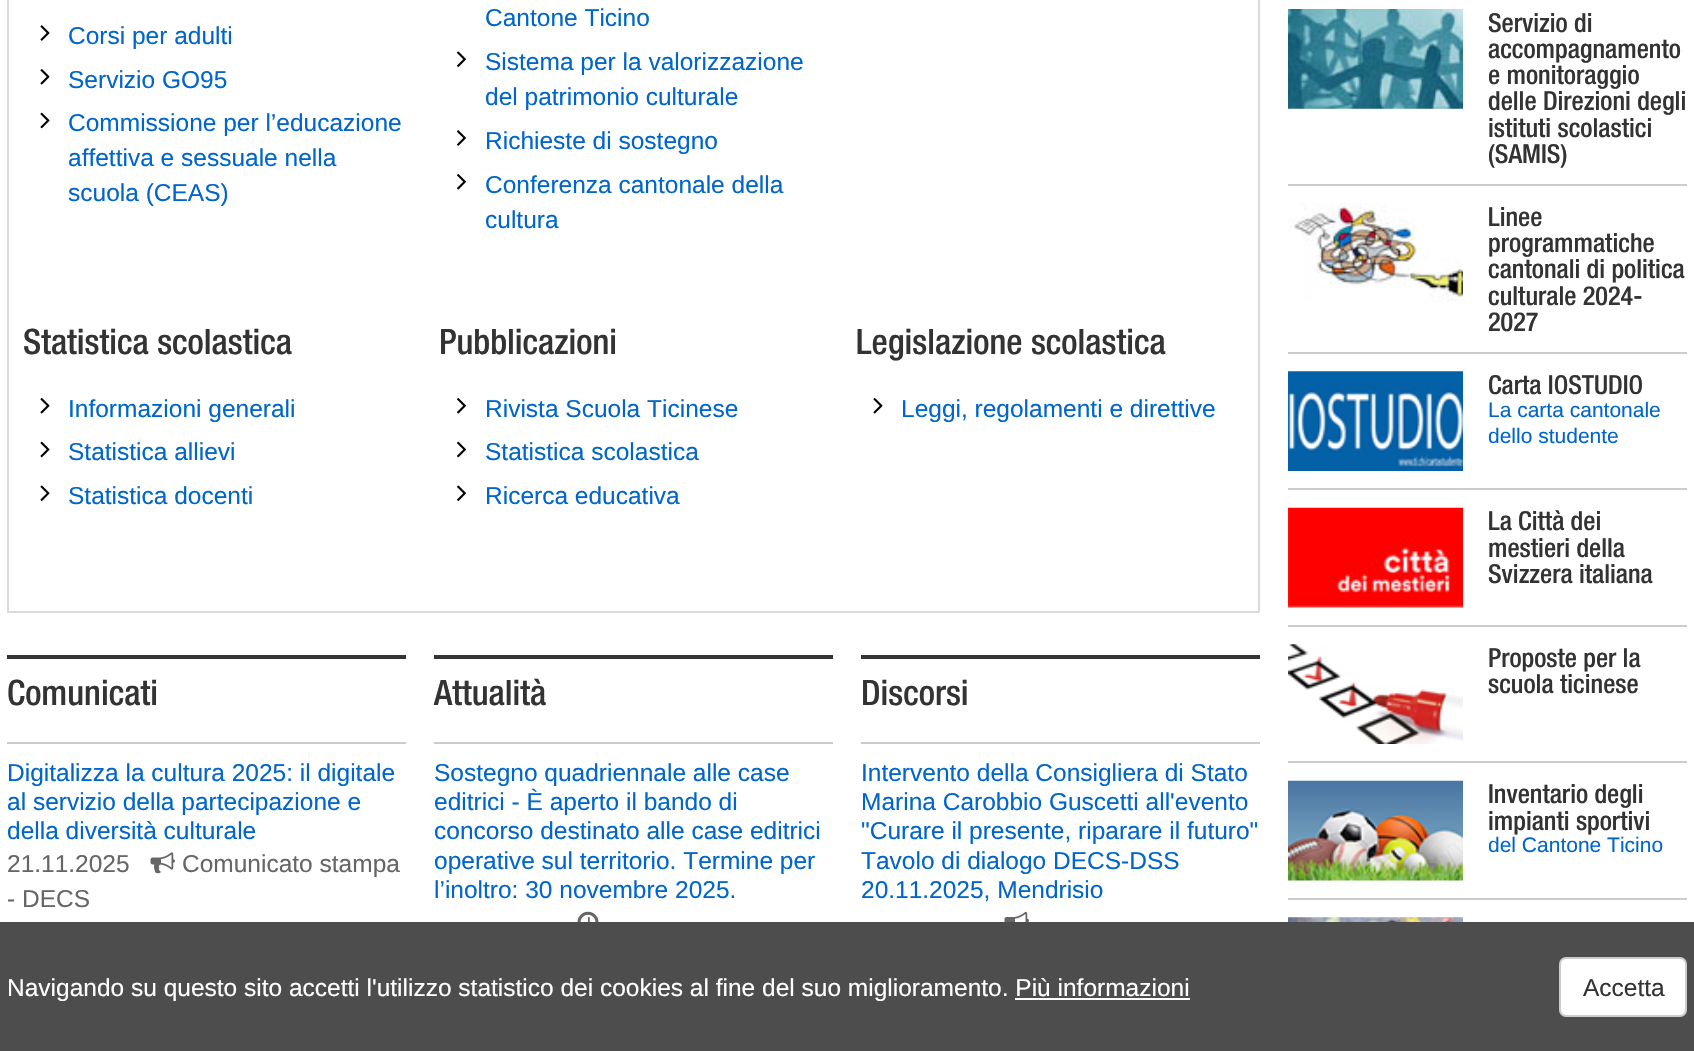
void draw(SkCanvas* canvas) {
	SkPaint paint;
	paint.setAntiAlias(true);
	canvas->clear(0xffffffff);
	paint.setStroke(true);
	paint.setStrokeWidth(2);
	paint.setColor(0xffdbdbdb);
	canvas->drawRect(SkRect::MakeXYWH(8, -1, 1251, 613), paint);
	canvas->drawImageRect(SkImages::DeferredFromEncodedData(SkData::MakeFromFileName("img1.png")), SkRect::MakeXYWH(40, 25, 10, 16), SkSamplingOptions());
	SkFont f1(fontMgr->matchFamilyStyle("Liberation Sans", SkFontStyle::Normal()), 24.5);
	f1.setSubpixel(true);
	paint.setStroke(false);
	paint.setColor(0xff0066cc);
	canvas->drawString("Corsi per adulti", 68, 44, f1, paint);
	canvas->drawImageRect(SkImages::DeferredFromEncodedData(SkData::MakeFromFileName("img2.png")), SkRect::MakeXYWH(40, 69, 10, 16), SkSamplingOptions());
	canvas->drawString("Servizio GO95", 68, 88, f1, paint);
	canvas->drawImageRect(SkImages::DeferredFromEncodedData(SkData::MakeFromFileName("img3.png")), SkRect::MakeXYWH(40, 112, 10, 17), SkSamplingOptions());
	canvas->drawString("Commissione per l’educazione", 68, 131, f1, paint);
	canvas->drawString("affettiva e sessuale nella", 68, 166, f1, paint);
	canvas->drawString("scuola (CEAS)", 68, 201, f1, paint);
	canvas->drawString("Cantone Ticino", 485, 26, f1, paint);
	canvas->drawImageRect(SkImages::DeferredFromEncodedData(SkData::MakeFromFileName("img4.png")), SkRect::MakeXYWH(457, 51, 9, 16), SkSamplingOptions());
	canvas->drawString("Sistema per la valorizzazione", 485, 70, f1, paint);
	canvas->drawString("del patrimonio culturale", 485, 105, f1, paint);
	canvas->drawImageRect(SkImages::DeferredFromEncodedData(SkData::MakeFromFileName("img5.png")), SkRect::MakeXYWH(457, 130, 9, 16), SkSamplingOptions());
	canvas->drawString("Richieste di sostegno", 485, 149, f1, paint);
	canvas->drawImageRect(SkImages::DeferredFromEncodedData(SkData::MakeFromFileName("img6.png")), SkRect::MakeXYWH(457, 174, 9, 16), SkSamplingOptions());
	canvas->drawString("Conferenza cantonale della", 485, 193, f1, paint);
	canvas->drawString("cultura", 485, 228, f1, paint);
	SkFont f2(fontMgr->matchFamilyStyle("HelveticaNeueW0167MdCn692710", SkFontStyle::Normal()), 35);
	f2.setSubpixel(true);
	paint.setColor(0xff333333);
	canvas->drawString("Statistica scolastica", 23, 354, f2, paint);
	canvas->drawImageRect(SkImages::DeferredFromEncodedData(SkData::MakeFromFileName("img2.png")), SkRect::MakeXYWH(40, 398, 10, 16), SkSamplingOptions());
	paint.setColor(0xff0066cc);
	canvas->drawString("Informazioni generali", 68, 417, f1, paint);
	canvas->drawImageRect(SkImages::DeferredFromEncodedData(SkData::MakeFromFileName("img3.png")), SkRect::MakeXYWH(40, 441, 10, 17), SkSamplingOptions());
	canvas->drawString("Statistica allievi", 68, 460, f1, paint);
	canvas->drawImageRect(SkImages::DeferredFromEncodedData(SkData::MakeFromFileName("img7.png")), SkRect::MakeXYWH(40, 485, 10, 16), SkSamplingOptions());
	canvas->drawString("Statistica docenti", 68, 504, f1, paint);
	paint.setColor(0xff333333);
	canvas->drawString("Pubblicazioni", 439, 354, f2, paint);
	canvas->drawImageRect(SkImages::DeferredFromEncodedData(SkData::MakeFromFileName("img6.png")), SkRect::MakeXYWH(457, 398, 9, 16), SkSamplingOptions());
	paint.setColor(0xff0066cc);
	canvas->drawString("Rivista Scuola Ticinese", 485, 417, f1, paint);
	canvas->drawImageRect(SkImages::DeferredFromEncodedData(SkData::MakeFromFileName("img8.png")), SkRect::MakeXYWH(457, 441, 9, 17), SkSamplingOptions());
	canvas->drawString("Statistica scolastica", 485, 460, f1, paint);
	canvas->drawImageRect(SkImages::DeferredFromEncodedData(SkData::MakeFromFileName("img4.png")), SkRect::MakeXYWH(457, 485, 9, 16), SkSamplingOptions());
	canvas->drawString("Ricerca educativa", 485, 504, f1, paint);
	paint.setColor(0xff333333);
	canvas->drawString("Legislazione scolastica", 856, 354, f2, paint);
	canvas->drawImageRect(SkImages::DeferredFromEncodedData(SkData::MakeFromFileName("img2.png")), SkRect::MakeXYWH(873, 398, 10, 16), SkSamplingOptions());
	paint.setColor(0xff0066cc);
	canvas->drawString("Leggi, regolamenti e direttive", 901, 417, f1, paint);
	paint.setColor(0xff333333);
	canvas->drawRect(SkRect::MakeXYWH(7, 655, 399, 4), paint);
	canvas->drawString("Comunicati", 7, 705, f2, paint);
	paint.setColor(0xffcccccc);
	canvas->drawRect(SkRect::MakeXYWH(7, 742, 399, 2), paint);
	paint.setColor(0xff0066cc);
	canvas->drawString("Digitalizza la cultura 2025: il digitale", 7, 781, f1, paint);
	canvas->drawString("al servizio della partecipazione e", 7, 810, f1, paint);
	canvas->drawString("della diversità culturale", 7, 839, f1, paint);
	paint.setColor(0xff666666);
	canvas->drawString("21.11.2025", 7, 872, f1, paint);
	canvas->drawImageRect(SkImages::DeferredFromEncodedData(SkData::MakeFromFileName("img9.png")), SkRect::MakeXYWH(150, 852, 25, 22), SkSamplingOptions());
	canvas->drawString("Comunicato stampa", 182, 872, f1, paint);
	canvas->drawString("- DECS", 7, 907, f1, paint);
	paint.setColor(0xff333333);
	canvas->drawRect(SkRect::MakeXYWH(434, 655, 399, 4), paint);
	canvas->drawString("Attualità", 434, 705, f2, paint);
	paint.setColor(0xffcccccc);
	canvas->drawRect(SkRect::MakeXYWH(434, 742, 399, 2), paint);
	paint.setColor(0xff0066cc);
	canvas->drawString("Sostegno quadriennale alle case", 434, 781, f1, paint);
	canvas->drawString("editrici - È aperto il bando di", 434, 810, f1, paint);
	canvas->drawString("concorso destinato alle case editrici", 434, 839, f1, paint);
	canvas->drawString("operative sul territorio. Termine per", 434, 869, f1, paint);
	canvas->drawString("l’inoltro: 30 novembre 2025.", 434, 898, f1, paint);
	canvas->drawImageRect(SkImages::DeferredFromEncodedData(SkData::MakeFromFileName("img10.png")), SkRect::MakeXYWH(577, 911, 22, 11), SkSamplingOptions());
	paint.setColor(0xff333333);
	canvas->drawRect(SkRect::MakeXYWH(861, 655, 399, 4), paint);
	canvas->drawString("Discorsi", 861, 705, f2, paint);
	paint.setColor(0xffcccccc);
	canvas->drawRect(SkRect::MakeXYWH(861, 742, 399, 2), paint);
	paint.setColor(0xff0066cc);
	canvas->drawString("Intervento della Consigliera di Stato", 861, 781, f1, paint);
	canvas->drawString("Marina Carobbio Guscetti all'evento", 861, 810, f1, paint);
	canvas->drawString("\"Curare il presente, riparare il futuro\"", 861, 839, f1, paint);
	canvas->drawString("Tavolo di dialogo DECS-DSS", 861, 869, f1, paint);
	canvas->drawString("20.11.2025, Mendrisio", 861, 898, f1, paint);
	canvas->drawImageRect(SkImages::DeferredFromEncodedData(SkData::MakeFromFileName("img11.png")), SkRect::MakeXYWH(1004, 911, 25, 11), SkSamplingOptions());
	paint.setColor(0xffcccccc);
	canvas->drawRect(SkRect::MakeXYWH(1288, 184, 399, 2), paint);
	canvas->drawImageRect(SkImages::DeferredFromEncodedData(SkData::MakeFromFileName("img12.png")), SkRect::MakeXYWH(1288, 9, 175, 100), SkSamplingOptions());
	SkFont f3(fontMgr->matchFamilyStyle("HelveticaNeueW0167MdCn692710", SkFontStyle::Normal()), 26.25);
	f3.setSubpixel(true);
	paint.setColor(0xff333333);
	canvas->drawString("Servizio di", 1488, 32, f3, paint);
	canvas->drawString("accompagnamento", 1488, 58, f3, paint);
	canvas->drawString("e monitoraggio", 1488, 84, f3, paint);
	canvas->drawString("delle Direzioni degli", 1488, 110, f3, paint);
	canvas->drawString("istituti scolastici", 1488, 137, f3, paint);
	canvas->drawString("(SAMIS)", 1488, 163, f3, paint);
	paint.setColor(0xffcccccc);
	canvas->drawRect(SkRect::MakeXYWH(1288, 352, 399, 2), paint);
	canvas->drawImageRect(SkImages::DeferredFromEncodedData(SkData::MakeFromFileName("img13.png")), SkRect::MakeXYWH(1288, 203, 175, 99), SkSamplingOptions());
	paint.setColor(0xff333333);
	canvas->drawString("Linee", 1488, 226, f3, paint);
	canvas->drawString("programmatiche", 1488, 252, f3, paint);
	canvas->drawString("cantonali di politica", 1488, 278, f3, paint);
	canvas->drawString("culturale 2024-", 1488, 305, f3, paint);
	canvas->drawString("2027", 1488, 331, f3, paint);
	paint.setColor(0xffcccccc);
	canvas->drawRect(SkRect::MakeXYWH(1288, 488, 399, 2), paint);
	canvas->drawImageRect(SkImages::DeferredFromEncodedData(SkData::MakeFromFileName("img14.png")), SkRect::MakeXYWH(1288, 371, 175, 100), SkSamplingOptions());
	paint.setColor(0xff333333);
	canvas->drawString("Carta IOSTUDIO", 1488, 394, f3, paint);
	SkFont f4(fontMgr->matchFamilyStyle("Liberation Sans", SkFontStyle::Normal()), 21);
	f4.setSubpixel(true);
	paint.setColor(0xff0066cc);
	canvas->drawString("La carta cantonale", 1488, 417, f4, paint);
	canvas->drawString("dello studente", 1488, 443, f4, paint);
	paint.setColor(0xffcccccc);
	canvas->drawRect(SkRect::MakeXYWH(1288, 625, 399, 2), paint);
	canvas->drawImageRect(SkImages::DeferredFromEncodedData(SkData::MakeFromFileName("img15.png")), SkRect::MakeXYWH(1288, 507, 175, 101), SkSamplingOptions());
	paint.setColor(0xff333333);
	canvas->drawString("La Città dei", 1488, 530, f3, paint);
	canvas->drawString("mestieri della", 1488, 557, f3, paint);
	canvas->drawString("Svizzera italiana", 1488, 583, f3, paint);
	paint.setColor(0xffcccccc);
	canvas->drawRect(SkRect::MakeXYWH(1288, 761, 399, 2), paint);
	canvas->drawImageRect(SkImages::DeferredFromEncodedData(SkData::MakeFromFileName("img16.png")), SkRect::MakeXYWH(1288, 644, 175, 100), SkSamplingOptions());
	paint.setColor(0xff333333);
	canvas->drawString("Proposte per la", 1488, 667, f3, paint);
	canvas->drawString("scuola ticinese", 1488, 693, f3, paint);
	paint.setColor(0xffcccccc);
	canvas->drawRect(SkRect::MakeXYWH(1288, 898, 399, 2), paint);
	canvas->drawImageRect(SkImages::DeferredFromEncodedData(SkData::MakeFromFileName("img17.png")), SkRect::MakeXYWH(1288, 780, 175, 101), SkSamplingOptions());
	paint.setColor(0xff333333);
	canvas->drawString("Inventario degli", 1488, 803, f3, paint);
	canvas->drawString("impianti sportivi", 1488, 830, f3, paint);
	paint.setColor(0xff0066cc);
	canvas->drawString("del Cantone Ticino", 1488, 852, f4, paint);
	canvas->drawImageRect(SkImages::DeferredFromEncodedData(SkData::MakeFromFileName("img18.png")), SkRect::MakeXYWH(1288, 917, 175, 5), SkSamplingOptions());
	paint.setColor(0xff4d4d4d);
	canvas->drawRect(SkRect::MakeXYWH(0, 922, 1694, 129), paint);
	paint.setColor(0xffffffff);
	canvas->drawString("Navigando su questo sito accetti l'utilizzo statistico dei cookies al fine del suo miglioramento. Più informazioni", 7, 996, f1, paint);
	canvas->drawRect(SkRect::MakeXYWH(1015, 998, 175, 2), paint);
	canvas->drawRoundRect(SkRect::MakeXYWH(1560, 958, 126, 58), 6, 6, paint);
	paint.setStroke(true);
	paint.setColor(0xffcccccc);
	canvas->drawRoundRect(SkRect::MakeXYWH(1560, 958, 126, 58), 6, 6, paint);
	paint.setStroke(false);
	paint.setColor(0xff333333);
	canvas->drawString("Accetta", 1583, 996, f1, paint);
}
